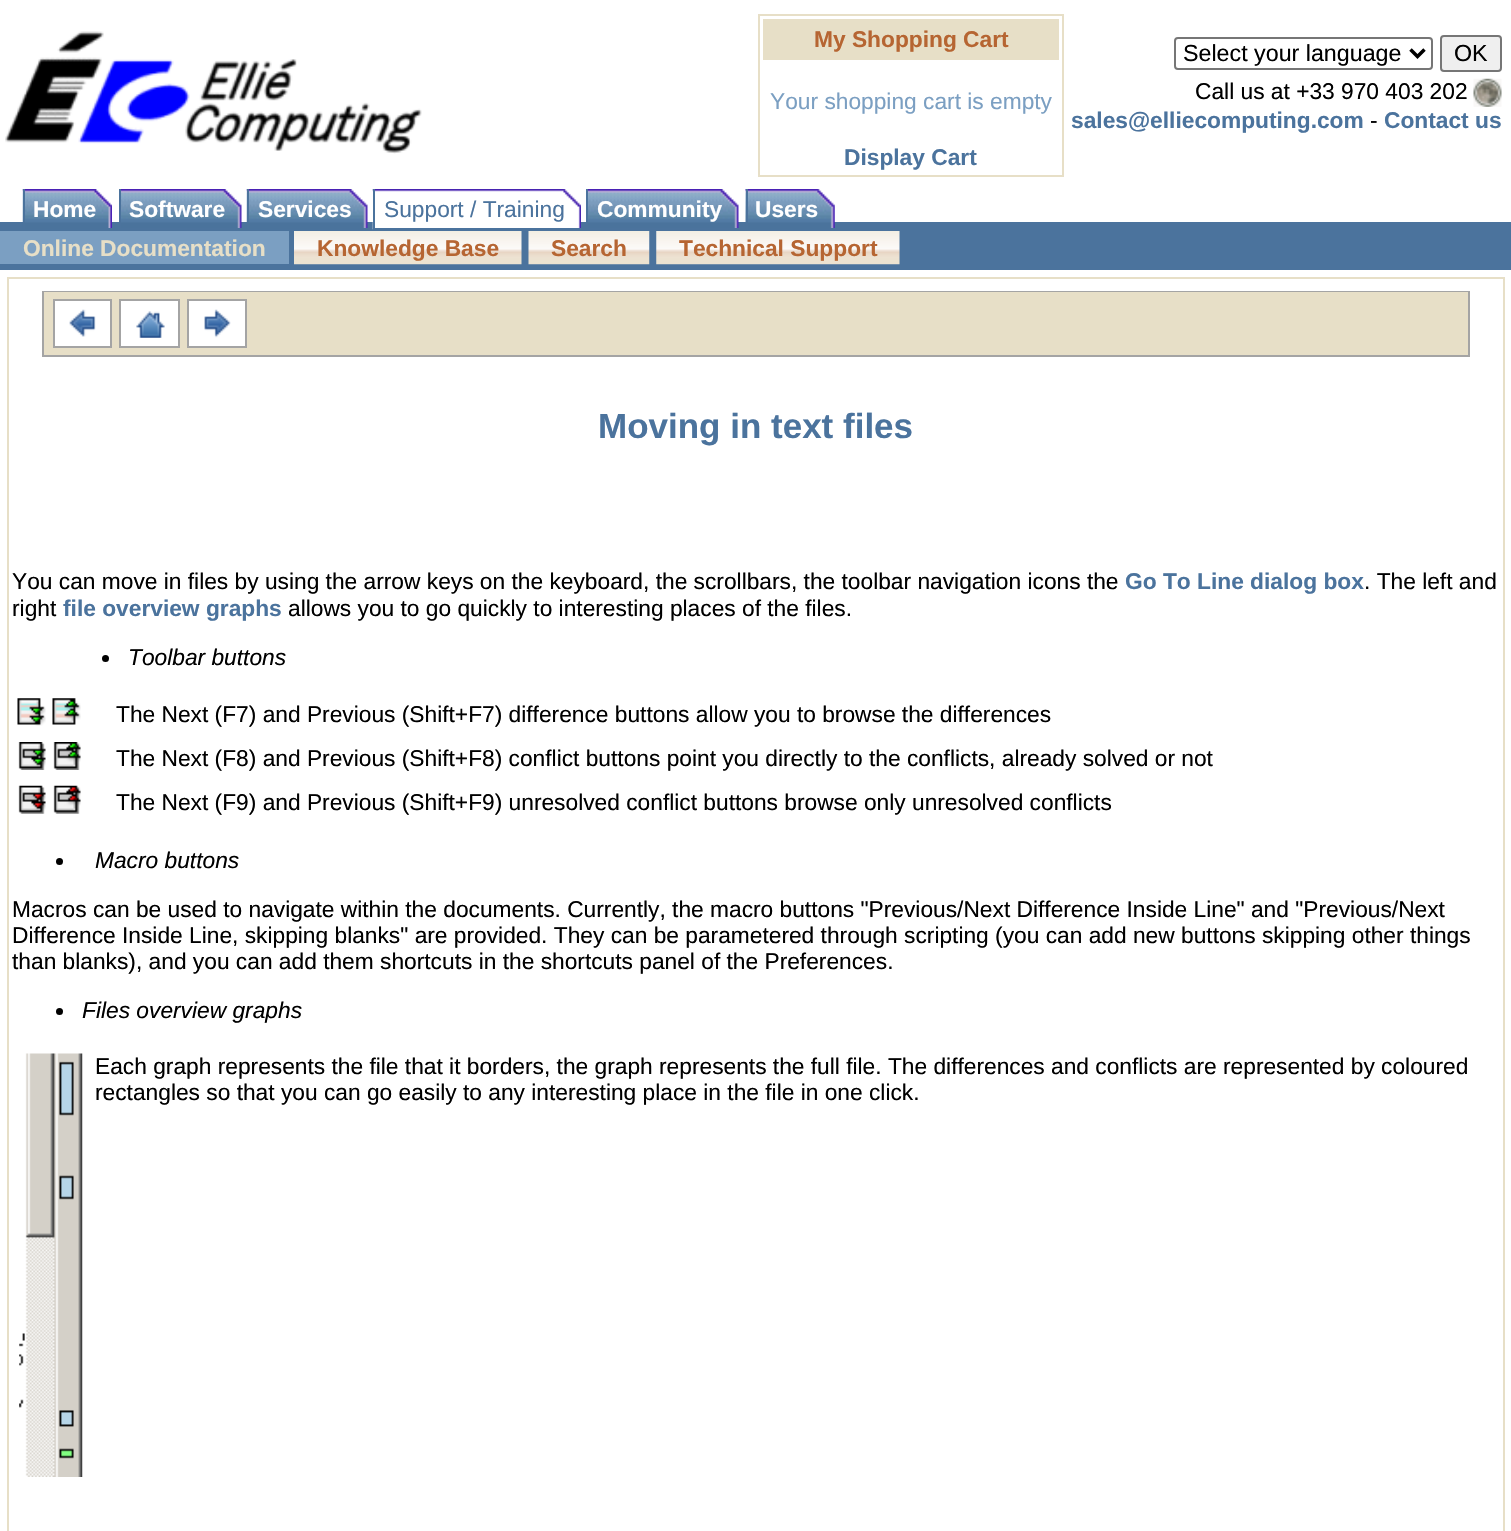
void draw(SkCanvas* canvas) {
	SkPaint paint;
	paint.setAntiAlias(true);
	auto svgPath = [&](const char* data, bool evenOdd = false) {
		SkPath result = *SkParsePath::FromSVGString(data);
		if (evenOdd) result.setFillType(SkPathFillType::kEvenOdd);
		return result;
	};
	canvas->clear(0xffffffff);
	canvas->drawImageRect(SkImages::DeferredFromEncodedData(SkData::MakeFromFileName("img1.png")), SkRect::MakeXYWH(5, 31, 417, 123), SkSamplingOptions());
	paint.setStroke(true);
	paint.setStrokeWidth(2);
	paint.setColor(0xffe7dfc7);
	canvas->drawRect(SkRect::MakeXYWH(759, 15, 304, 161), paint);
	paint.setStroke(false);
	canvas->drawRect(SkRect::MakeXYWH(763, 19, 296, 41), paint);
	SkFont f1(fontMgr->matchFamilyStyle("Liberation Sans", SkFontStyle::Bold()), 22.75);
	f1.setSubpixel(true);
	paint.setColor(0xffb66532);
	canvas->drawString("My Shopping Cart", 814, 47, f1, paint);
	SkFont f2(fontMgr->matchFamilyStyle("Liberation Sans", SkFontStyle::Normal()), 22.75);
	f2.setSubpixel(true);
	paint.setColor(0xff7b9fc2);
	canvas->drawString("Your shopping cart is empty", 770, 109, f2, paint);
	paint.setColor(0xff4b739d);
	canvas->drawString("Display Cart", 844, 165, f1, paint);
	paint.setStroke(true);
	paint.setColor(0xff767676);
	canvas->drawRoundRect(SkRect::MakeXYWH(1175, 38, 257, 31), 3, 3, paint);
	paint.setStrokeWidth(3.5);
	paint.setColor(0xff000000);
	canvas->drawPath(svgPath("M1410.5 49.5L1417.5 56.5L1424.5 49.5"), paint);
	SkFont f3(fontMgr->matchFamilyStyle("Liberation Sans", SkFontStyle::Normal()), 23.25);
	f3.setSubpixel(true);
	paint.setStroke(false);
	canvas->drawString("Select your language", 1183, 61, f3, paint);
	paint.setColor(0xffefefef);
	canvas->drawRoundRect(SkRect::MakeXYWH(1441, 36, 60, 35), 3, 3, paint);
	paint.setStroke(true);
	paint.setStrokeWidth(2);
	paint.setColor(0xff767676);
	canvas->drawRoundRect(SkRect::MakeXYWH(1441, 36, 60, 35), 3, 3, paint);
	paint.setStroke(false);
	paint.setColor(0xff000000);
	canvas->drawString("OK", 1454, 61, f3, paint);
	canvas->drawString("Call us at +33 970 403 202", 1195, 99, f2, paint);
	canvas->drawImageRect(SkImages::DeferredFromEncodedData(SkData::MakeFromFileName("img2.png")), SkRect::MakeXYWH(1473, 78, 29, 29), SkSamplingOptions());
	paint.setColor(0xff4b739d);
	canvas->drawString("sales@elliecomputing.com", 1071, 128, f1, paint);
	paint.setColor(0xff000000);
	canvas->drawString("-", 1370, 128, f2, paint);
	paint.setColor(0xff4b739d);
	canvas->drawString("Contact us", 1384, 128, f1, paint);
	canvas->drawRect(SkRect::MakeXYWH(0, 222, 1511, 48), paint);
	canvas->drawImageRect(SkImages::DeferredFromEncodedData(SkData::MakeFromFileName("img3.png")), SkRect::MakeXYWH(22, 189, 90, 41), SkSamplingOptions());
	canvas->drawImageRect(SkImages::DeferredFromEncodedData(SkData::MakeFromFileName("img4.png")), SkRect::MakeXYWH(121, 189, 121, 39), SkSamplingOptions());
	canvas->drawImageRect(SkImages::DeferredFromEncodedData(SkData::MakeFromFileName("img5.png")), SkRect::MakeXYWH(246, 189, 122, 41), SkSamplingOptions());
	canvas->drawImageRect(SkImages::DeferredFromEncodedData(SkData::MakeFromFileName("img6.png")), SkRect::MakeXYWH(372, 189, 209, 41), SkSamplingOptions());
	canvas->drawImageRect(SkImages::DeferredFromEncodedData(SkData::MakeFromFileName("img7.png")), SkRect::MakeXYWH(588, 189, 151, 39), SkSamplingOptions());
	canvas->drawImageRect(SkImages::DeferredFromEncodedData(SkData::MakeFromFileName("img8.png")), SkRect::MakeXYWH(745, 189, 90, 41), SkSamplingOptions());
	paint.setColor(0xffffffff);
	canvas->drawString("Home", 33, 217, f1, paint);
	paint.setColor(0xff4b739d);
	canvas->drawRect(SkRect::MakeXYWH(108, 228, 4, 2), paint);
	canvas->drawRect(SkRect::MakeXYWH(23, 189, 2, 40), paint);
	paint.setColor(0xffffffff);
	canvas->drawString("Software", 129, 217, f1, paint);
	paint.setColor(0xff4b739d);
	canvas->drawRect(SkRect::MakeXYWH(119, 189, 2, 40), paint);
	paint.setColor(0xffffffff);
	canvas->drawString("Services", 258, 217, f1, paint);
	paint.setColor(0xff4b739d);
	canvas->drawRect(SkRect::MakeXYWH(363, 228, 5, 2), paint);
	canvas->drawRect(SkRect::MakeXYWH(247, 189, 2, 40), paint);
	canvas->drawString("Support / Training", 384, 217, f2, paint);
	canvas->drawRect(SkRect::MakeXYWH(373, 228, 208, 2), paint);
	canvas->drawRect(SkRect::MakeXYWH(373, 189, 2, 40), paint);
	paint.setColor(0xffffffff);
	canvas->drawString("Community", 597, 217, f1, paint);
	paint.setColor(0xff4b739d);
	canvas->drawRect(SkRect::MakeXYWH(586, 189, 2, 40), paint);
	paint.setColor(0xffffffff);
	canvas->drawString("Users", 755, 217, f1, paint);
	paint.setColor(0xff4b739d);
	canvas->drawRect(SkRect::MakeXYWH(830, 228, 5, 2), paint);
	canvas->drawRect(SkRect::MakeXYWH(746, 189, 2, 40), paint);
	paint.setColor(0xff7b9fc2);
	canvas->drawRect(SkRect::MakeXYWH(0, 231, 289, 33), paint);
	paint.setColor(0xffe7dfc7);
	canvas->drawString("Online Documentation", 23, 256, f1, paint);
	canvas->drawImageRect(SkImages::DeferredFromEncodedData(SkData::MakeFromFileName("img9.png")), SkRect::MakeXYWH(294, 231, 228, 34), SkSamplingOptions());
	canvas->drawImageRect(SkImages::DeferredFromEncodedData(SkData::MakeFromFileName("img10.png")), SkRect::MakeXYWH(528, 231, 122, 34), SkSamplingOptions());
	canvas->drawImageRect(SkImages::DeferredFromEncodedData(SkData::MakeFromFileName("img11.png")), SkRect::MakeXYWH(656, 231, 244, 34), SkSamplingOptions());
	paint.setColor(0xffb66532);
	canvas->drawString("Knowledge Base", 317, 256, f1, paint);
	canvas->drawString("Search", 551, 256, f1, paint);
	canvas->drawString("Technical Support", 679, 256, f1, paint);
	paint.setStroke(true);
	paint.setColor(0xffe7dfc7);
	canvas->drawRect(SkRect::MakeXYWH(8, 278, 1496, 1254), paint);
	paint.setColor(0xffa4a4a4);
	canvas->drawRect(SkRect::MakeXYWH(43, 292, 1426, 64), paint);
	paint.setStroke(false);
	paint.setColor(0xffe7dfc7);
	canvas->drawRect(SkRect::MakeXYWH(44, 292, 1424, 63), paint);
	paint.setColor(0xffffffff);
	canvas->drawRect(SkRect::MakeXYWH(54, 300, 57, 47), paint);
	paint.setStroke(true);
	paint.setColor(0xffa4a4a4);
	canvas->drawRect(SkRect::MakeXYWH(54, 300, 57, 47), paint);
	canvas->drawImageRect(SkImages::DeferredFromEncodedData(SkData::MakeFromFileName("img12.png")), SkRect::MakeXYWH(69, 309, 27, 28), SkSamplingOptions());
	paint.setStroke(false);
	paint.setColor(0xffffffff);
	canvas->drawRect(SkRect::MakeXYWH(120, 300, 59, 47), paint);
	paint.setStroke(true);
	paint.setColor(0xffa4a4a4);
	canvas->drawRect(SkRect::MakeXYWH(120, 300, 59, 47), paint);
	canvas->drawImageRect(SkImages::DeferredFromEncodedData(SkData::MakeFromFileName("img13.png")), SkRect::MakeXYWH(136, 311, 29, 27), SkSamplingOptions());
	paint.setStroke(false);
	paint.setColor(0xffffffff);
	canvas->drawRect(SkRect::MakeXYWH(188, 300, 58, 47), paint);
	paint.setStroke(true);
	paint.setColor(0xffa4a4a4);
	canvas->drawRect(SkRect::MakeXYWH(188, 300, 58, 47), paint);
	canvas->drawImageRect(SkImages::DeferredFromEncodedData(SkData::MakeFromFileName("img14.png")), SkRect::MakeXYWH(204, 309, 27, 29), SkSamplingOptions());
	SkFont f4(fontMgr->matchFamilyStyle("Liberation Sans", SkFontStyle::Bold()), 35);
	f4.setSubpixel(true);
	paint.setStroke(false);
	paint.setColor(0xff4b739d);
	canvas->drawString("Moving in text files", 598, 438, f4, paint);
	paint.setColor(0xff000000);
	canvas->drawString("You can move in files by using the arrow keys on the keyboard, the scrollbars, the toolbar navigation icons the", 12, 589, f2, paint);
	paint.setColor(0xff4b739d);
	canvas->drawString("Go To Line dialog box", 1125, 589, f1, paint);
	paint.setColor(0xff000000);
	canvas->drawString(". The left and", 1364, 589, f2, paint);
	canvas->drawString("right", 12, 616, f2, paint);
	paint.setColor(0xff4b739d);
	canvas->drawString("file overview graphs", 63, 616, f1, paint);
	paint.setColor(0xff000000);
	canvas->drawString("allows you to go quickly to interesting places of the files.", 288, 616, f2, paint);
	canvas->drawCircle(105.5, 658.5, 3.5, paint);
	SkFont f5(fontMgr->matchFamilyStyle("Liberation Sans", SkFontStyle::Italic()), 22.75);
	f5.setSubpixel(true);
	canvas->drawString("Toolbar buttons", 128, 665, f5, paint);
	canvas->drawImageRect(SkImages::DeferredFromEncodedData(SkData::MakeFromFileName("img15.png")), SkRect::MakeXYWH(17, 698, 29, 28), SkSamplingOptions());
	canvas->drawImageRect(SkImages::DeferredFromEncodedData(SkData::MakeFromFileName("img16.png")), SkRect::MakeXYWH(52, 698, 29, 27), SkSamplingOptions());
	canvas->drawString("The Next (F7) and Previous (Shift+F7) difference buttons allow you to browse the differences", 116, 722, f2, paint);
	canvas->drawImageRect(SkImages::DeferredFromEncodedData(SkData::MakeFromFileName("img17.png")), SkRect::MakeXYWH(18, 742, 28, 28), SkSamplingOptions());
	canvas->drawImageRect(SkImages::DeferredFromEncodedData(SkData::MakeFromFileName("img18.png")), SkRect::MakeXYWH(53, 742, 28, 28), SkSamplingOptions());
	canvas->drawString("The Next (F8) and Previous (Shift+F8) conflict buttons point you directly to the conflicts, already solved or not", 116, 766, f2, paint);
	canvas->drawImageRect(SkImages::DeferredFromEncodedData(SkData::MakeFromFileName("img19.png")), SkRect::MakeXYWH(18, 785, 28, 29), SkSamplingOptions());
	canvas->drawImageRect(SkImages::DeferredFromEncodedData(SkData::MakeFromFileName("img20.png")), SkRect::MakeXYWH(53, 785, 28, 29), SkSamplingOptions());
	canvas->drawString("The Next (F9) and Previous (Shift+F9) unresolved conflict buttons browse only unresolved conflicts", 116, 810, f2, paint);
	canvas->drawCircle(59.5, 861.5, 3.5, paint);
	canvas->drawString("Macro buttons", 95, 868, f5, paint);
	canvas->drawString("Macros can be used to navigate within the documents. Currently, the macro buttons \"Previous/Next Difference Inside Line\" and \"Previous/Next", 12, 917, f2, paint);
	canvas->drawString("Difference Inside Line, skipping blanks\" are provided. They can be parametered through scripting (you can add new buttons skipping other things", 12, 943, f2, paint);
	canvas->drawString("than blanks), and you can add them shortcuts in the shortcuts panel of the Preferences.", 12, 969, f2, paint);
	canvas->drawCircle(59.5, 1011.5, 3.5, paint);
	canvas->drawString("Files overview graphs", 82, 1018, f5, paint);
	canvas->drawImageRect(SkImages::DeferredFromEncodedData(SkData::MakeFromFileName("img21.png")), SkRect::MakeXYWH(19, 1053, 64, 424), SkSamplingOptions());
	canvas->drawString("Each graph represents the file that it borders, the graph represents the full file. The differences and conflicts are represented by coloured", 95, 1074, f2, paint);
	canvas->drawString("rectangles so that you can go easily to any interesting place in the file in one click.", 95, 1100, f2, paint);
}
